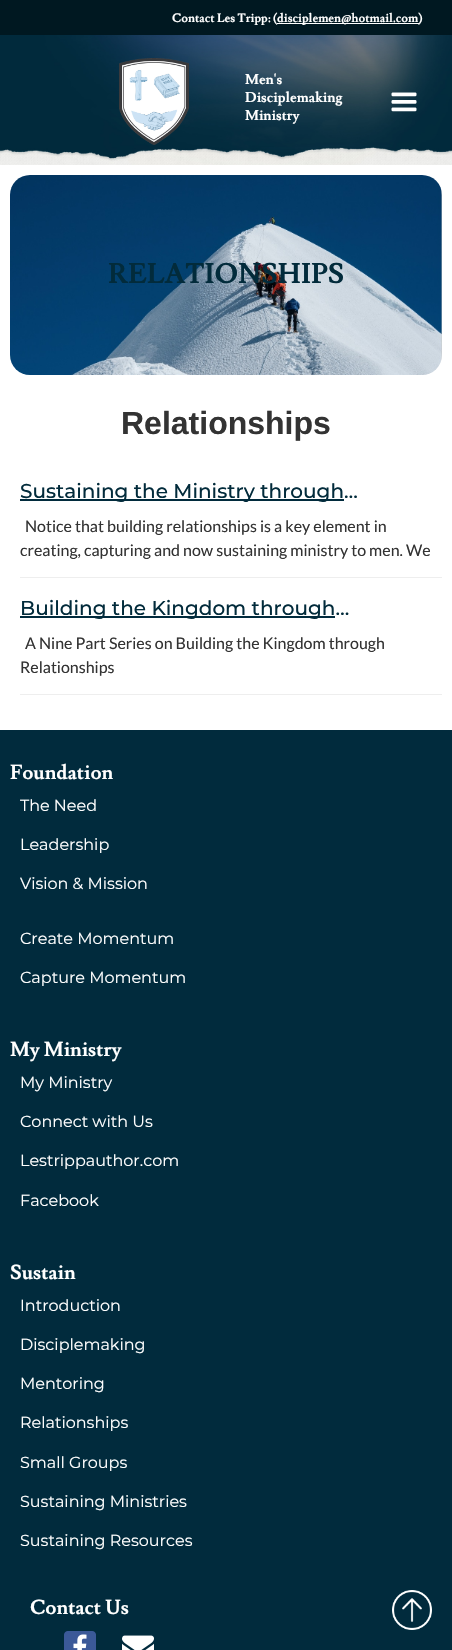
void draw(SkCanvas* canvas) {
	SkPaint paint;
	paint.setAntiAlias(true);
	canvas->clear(0xffffffff);
	paint.setColor(0xff001821);
	canvas->drawRect(SkRect::MakeXYWH(0, 0, 452, 35), paint);
	SkFont f1(fontMgr->matchFamilyStyle("Lusitana", SkFontStyle::Bold()), 12);
	f1.setSubpixel(true);
	paint.setColor(0xffffffff);
	canvas->drawString("Contact Les Tripp: (", 172, 22, f1, paint);
	canvas->drawRect(SkRect::MakeXYWH(277, 23, 142, 1), paint);
	canvas->drawString("disciplemen@hotmail.com)", 277, 22, f1, paint);
	canvas->drawImageRect(SkImages::DeferredFromEncodedData(SkData::MakeFromFileName("img1.png")), SkRect::MakeXYWH(0, 35, 452, 130), SkSamplingOptions());
	canvas->drawImageRect(SkImages::DeferredFromEncodedData(SkData::MakeFromFileName("img2.png")), SkRect::MakeXYWH(119, 58, 70, 87), SkSamplingOptions());
	SkFont f2(fontMgr->matchFamilyStyle("Lusitana", SkFontStyle::Bold()), 14);
	f2.setSubpixel(true);
	canvas->drawString("Men's", 245, 84, f2, paint);
	canvas->drawString("Disciplemaking", 245, 102, f2, paint);
	canvas->drawString("Ministry", 245, 120, f2, paint);
	canvas->drawImageRect(SkImages::DeferredFromEncodedData(SkData::MakeFromFileName("img3.png")), SkRect::MakeXYWH(391, 92, 26, 20), SkSamplingOptions());
	canvas->drawImageRect(SkImages::DeferredFromEncodedData(SkData::MakeFromFileName("img4.png")), SkRect::MakeXYWH(10, 175, 432, 200), SkSamplingOptions());
	SkFont f3(fontMgr->matchFamilyStyle("Lusitana", SkFontStyle::Bold()), 28);
	f3.setSubpixel(true);
	paint.setColor(0xff022b3b);
	canvas->drawString("RELATIONSHIPS", 108, 283, f3, paint);
	SkFont f4(fontMgr->matchFamilyStyle("Liberation Sans", SkFontStyle::Bold()), 32);
	f4.setSubpixel(true);
	paint.setColor(0xff333333);
	canvas->drawString("Relationships", 121, 434, f4, paint);
	paint.setColor(0xffeeeeee);
	canvas->drawRect(SkRect::MakeXYWH(20, 577, 422, 1), paint);
	paint.setColor(0xff012b3d);
	canvas->drawRect(SkRect::MakeXYWH(20, 499, 324, 2), paint);
	SkFont f5(fontMgr->matchFamilyStyle("Montserrat", SkFontStyle(500, SkFontStyle::kNormal_Width, SkFontStyle::kUpright_Slant)), 20);
	f5.setSubpixel(true);
	paint.setColor(0xff022b3b);
	canvas->drawString("Sustaining the Ministry through…", 20, 498, f5, paint);
	SkFont f6(fontMgr->matchFamilyStyle("Lato", SkFontStyle::Normal()), 16);
	f6.setSubpixel(true);
	paint.setColor(0xff333333);
	canvas->drawString("Notice that building relationships is a key element in", 25, 532, f6, paint);
	canvas->drawString("creating, capturing and now sustaining ministry to men. We", 20, 556, f6, paint);
	paint.setColor(0xffeeeeee);
	canvas->drawRect(SkRect::MakeXYWH(20, 694, 422, 1), paint);
	paint.setColor(0xff012b3d);
	canvas->drawRect(SkRect::MakeXYWH(20, 616, 315, 2), paint);
	paint.setColor(0xff022b3b);
	canvas->drawString("Building the Kingdom through…", 20, 615, f5, paint);
	paint.setColor(0xff333333);
	canvas->drawString("A Nine Part Series on Building the Kingdom through", 25, 649, f6, paint);
	canvas->drawString("Relationships", 20, 673, f6, paint);
	paint.setColor(0xff012b3d);
	canvas->drawRect(SkRect::MakeXYWH(0, 730, 452, 920), paint);
	SkFont f7(fontMgr->matchFamilyStyle("Lusitana", SkFontStyle::Bold()), 20);
	f7.setSubpixel(true);
	paint.setColor(0xffffffff);
	canvas->drawString("Foundation", 10, 779, f7, paint);
	SkFont f8(fontMgr->matchFamilyStyle("Montserrat", SkFontStyle::Normal()), 16);
	f8.setSubpixel(true);
	canvas->drawString("The Need", 20, 811, f8, paint);
	canvas->drawString("Leadership", 20, 850, f8, paint);
	canvas->drawString("Vision & Mission", 20, 889, f8, paint);
	canvas->drawString("Create Momentum", 20, 944, f8, paint);
	canvas->drawString("Capture Momentum", 20, 983, f8, paint);
	canvas->drawString("My Ministry", 10, 1056, f7, paint);
	canvas->drawString("My Ministry", 20, 1088, f8, paint);
	canvas->drawString("Connect with Us", 20, 1127, f8, paint);
	canvas->drawString("Lestrippauthor.com", 20, 1166, f8, paint);
	canvas->drawString("Facebook", 20, 1206, f8, paint);
	canvas->drawString("Sustain", 10, 1279, f7, paint);
	canvas->drawString("Introduction", 20, 1311, f8, paint);
	canvas->drawString("Disciplemaking", 20, 1350, f8, paint);
	canvas->drawString("Mentoring", 20, 1389, f8, paint);
	canvas->drawString("Relationships", 20, 1428, f8, paint);
	canvas->drawString("Small Groups", 20, 1468, f8, paint);
	canvas->drawString("Sustaining Ministries", 20, 1507, f8, paint);
	canvas->drawString("Sustaining Resources", 20, 1546, f8, paint);
	canvas->drawString("Contact Us", 30, 1614, f7, paint);
	canvas->drawImageRect(SkImages::DeferredFromEncodedData(SkData::MakeFromFileName("img5.png")), SkRect::MakeXYWH(64, 1631, 32, 19), SkSamplingOptions());
	canvas->drawImageRect(SkImages::DeferredFromEncodedData(SkData::MakeFromFileName("img6.png")), SkRect::MakeXYWH(122, 1635, 32, 15), SkSamplingOptions());
	canvas->drawImageRect(SkImages::DeferredFromEncodedData(SkData::MakeFromFileName("img7.png")), SkRect::MakeXYWH(392, 1590, 40, 40), SkSamplingOptions());
}
